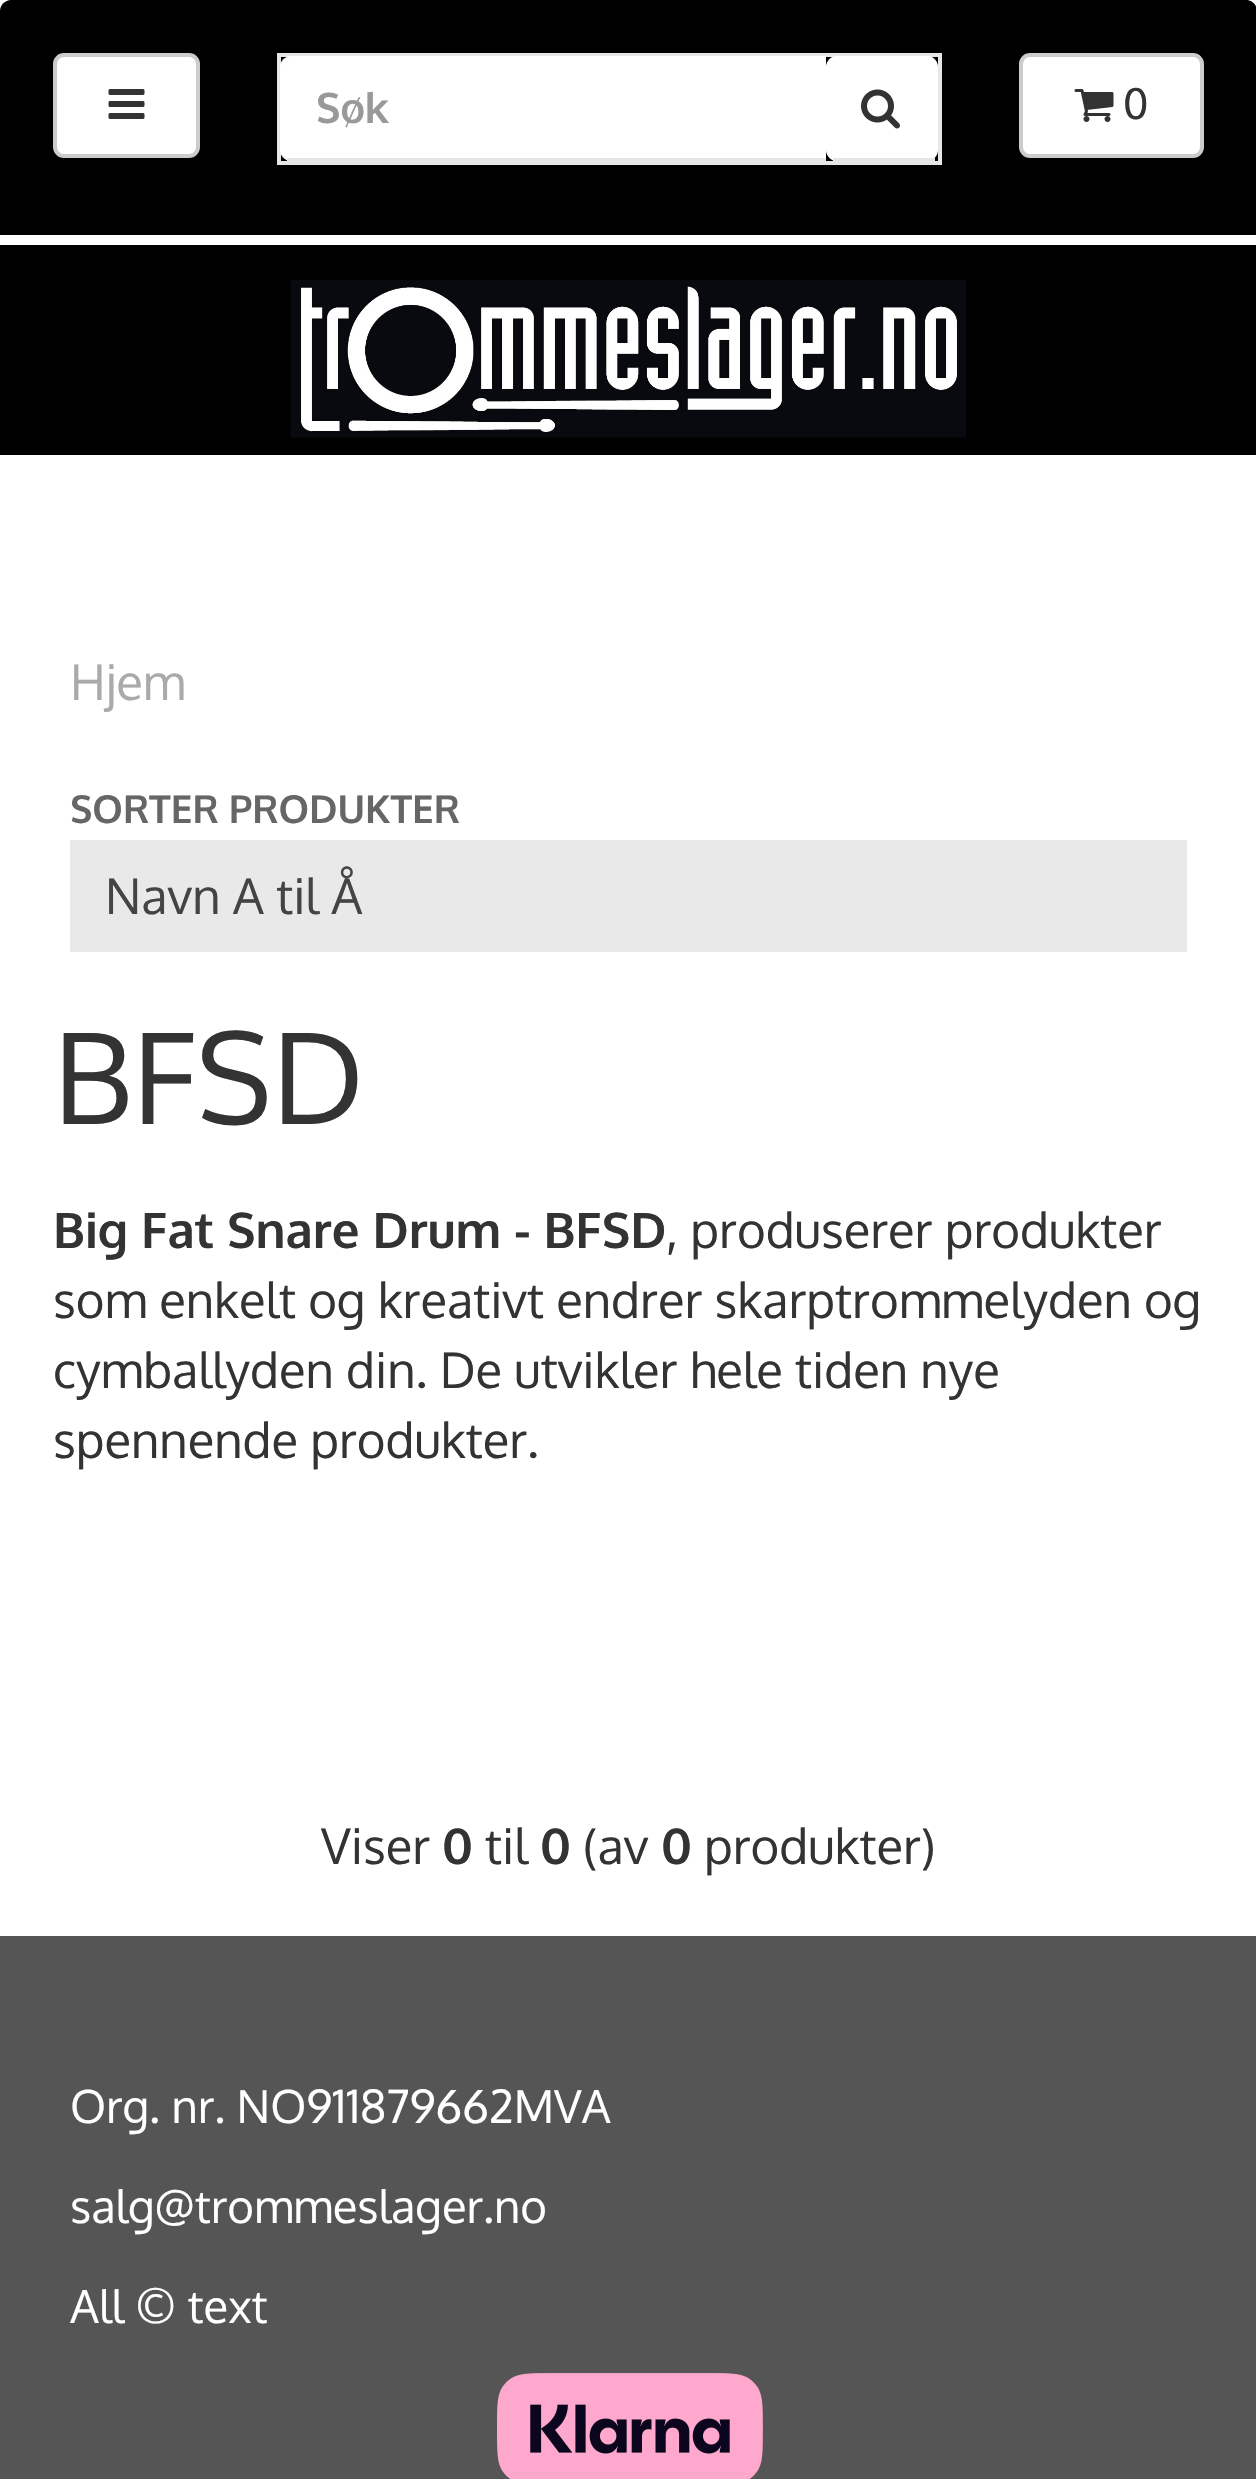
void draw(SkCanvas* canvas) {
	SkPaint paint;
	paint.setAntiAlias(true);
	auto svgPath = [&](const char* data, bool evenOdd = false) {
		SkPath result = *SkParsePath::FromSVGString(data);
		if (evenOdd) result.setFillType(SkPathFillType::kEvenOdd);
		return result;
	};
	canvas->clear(0xffffffff);
	paint.setColor(0xff000000);
	canvas->drawPath(svgPath("M11 0H1246C1252 0 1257 5 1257 11V235H0V11C0 5 5 0 11 0Z"), paint);
	paint.setColor(0xffffffff);
	canvas->drawRoundRect(SkRect::MakeXYWH(55, 55, 143, 101), 9, 9, paint);
	paint.setStroke(true);
	paint.setStrokeWidth(4);
	paint.setColor(0xffcccccc);
	canvas->drawRoundRect(SkRect::MakeXYWH(55, 55, 143, 101), 9, 9, paint);
	canvas->drawImageRect(SkImages::DeferredFromEncodedData(SkData::MakeFromFileName("img1.png")), SkRect::MakeXYWH(108, 89, 37, 30), SkSamplingOptions());
	paint.setColor(0xffe7e7e7);
	canvas->drawRect(SkRect::MakeXYWH(279, 55, 661, 108), paint);
	paint.setStroke(false);
	paint.setColor(0xffffffff);
	canvas->drawPath(svgPath("M291 56H826V161H291C285 161 280 156 280 150V67C280 61 285 56 291 56Z"), paint);
	paint.setColor(0xffe5e5e5);
	canvas->drawRect(SkRect::MakeXYWH(287, 158, 539, 3), paint);
	SkFont f1(fontMgr->matchFamilyStyle("Oxygen", SkFontStyle::Bold()), 42);
	f1.setSubpixel(true);
	paint.setColor(0xff999999);
	canvas->drawString("Søk", 316, 123, f1, paint);
	paint.setColor(0xffffffff);
	canvas->drawRoundRect(SkRect::MakeXYWH(826, 56, 112, 105), 11, 11, paint);
	paint.setColor(0xffe5e5e5);
	canvas->drawRect(SkRect::MakeXYWH(833, 158, 102, 3), paint);
	canvas->drawImageRect(SkImages::DeferredFromEncodedData(SkData::MakeFromFileName("img2.png")), SkRect::MakeXYWH(861, 89, 39, 40), SkSamplingOptions());
	paint.setColor(0xffffffff);
	canvas->drawRoundRect(SkRect::MakeXYWH(1021, 55, 181, 101), 9, 9, paint);
	paint.setStroke(true);
	paint.setColor(0xffcccccc);
	canvas->drawRoundRect(SkRect::MakeXYWH(1021, 55, 181, 101), 9, 9, paint);
	canvas->drawImageRect(SkImages::DeferredFromEncodedData(SkData::MakeFromFileName("img3.png")), SkRect::MakeXYWH(1074, 89, 40, 33), SkSamplingOptions());
	SkFont f2(fontMgr->matchFamilyStyle("Oxygen", SkFontStyle::Normal()), 42);
	f2.setSubpixel(true);
	paint.setStroke(false);
	paint.setColor(0xff333333);
	canvas->drawString("0", 1123, 119, f2, paint);
	paint.setColor(0xff000000);
	canvas->drawRect(SkRect::MakeXYWH(0, 245, 1256, 210), paint);
	canvas->drawImageRect(SkImages::DeferredFromEncodedData(SkData::MakeFromFileName("img4.png")), SkRect::MakeXYWH(290, 280, 676, 158), SkSamplingOptions());
	SkFont f3(fontMgr->matchFamilyStyle("Oxygen", SkFontStyle::Normal()), 49);
	f3.setSubpixel(true);
	paint.setColor(0xffaaaaaa);
	canvas->drawString("Hjem", 70, 700, f3, paint);
	SkFont f4(fontMgr->matchFamilyStyle("Oxygen", SkFontStyle::Bold()), 38.5);
	f4.setSubpixel(true);
	paint.setColor(0xff666666);
	canvas->drawString("SORTER PRODUKTER", 70, 823, f4, paint);
	paint.setColor(0xffe9e9e9);
	canvas->drawRect(SkRect::MakeXYWH(70, 840, 1117, 112), paint);
	paint.setColor(0xff444444);
	canvas->drawString("Navn A til Å", 105, 914, f3, paint);
	SkFont f5(fontMgr->matchFamilyStyle("Oxygen", SkFontStyle::Normal()), 126);
	f5.setSubpixel(true);
	paint.setColor(0xff333333);
	canvas->drawString("BFSD", 53, 1124, f5, paint);
	SkFont f6(fontMgr->matchFamilyStyle("Oxygen", SkFontStyle::Bold()), 49);
	f6.setSubpixel(true);
	canvas->drawString("Big Fat Snare Drum - BFSD", 53, 1248, f6, paint);
	canvas->drawString(", produserer produkter", 666, 1248, f3, paint);
	canvas->drawString("som enkelt og kreativt endrer skarptrommelyden og", 53, 1318, f3, paint);
	canvas->drawString("cymballyden din. De utvikler hele tiden nye", 53, 1388, f3, paint);
	canvas->drawString("spennende produkter.", 53, 1458, f3, paint);
	canvas->drawString("Viser", 321, 1864, f3, paint);
	canvas->drawString("0", 442, 1864, f6, paint);
	canvas->drawString("til", 485, 1864, f3, paint);
	canvas->drawString("0", 540, 1864, f6, paint);
	canvas->drawString("(av", 583, 1864, f3, paint);
	canvas->drawString("0", 661, 1864, f6, paint);
	canvas->drawString("produkter)", 704, 1864, f3, paint);
	paint.setColor(0xff555555);
	canvas->drawRect(SkRect::MakeXYWH(0, 1936, 1256, 543), paint);
	SkFont f7(fontMgr->matchFamilyStyle("Oxygen", SkFontStyle::Normal()), 45.5);
	f7.setSubpixel(true);
	paint.setColor(0xffffffff);
	canvas->drawString("Org. nr. NO911879662MVA", 70, 2123, f7, paint);
	canvas->drawString("salg@trommeslager.no", 70, 2223, f7, paint);
	canvas->drawString("All © text", 70, 2323, f7, paint);
	canvas->drawImageRect(SkImages::DeferredFromEncodedData(SkData::MakeFromFileName("img5.png")), SkRect::MakeXYWH(497, 2373, 266, 106), SkSamplingOptions());
}
